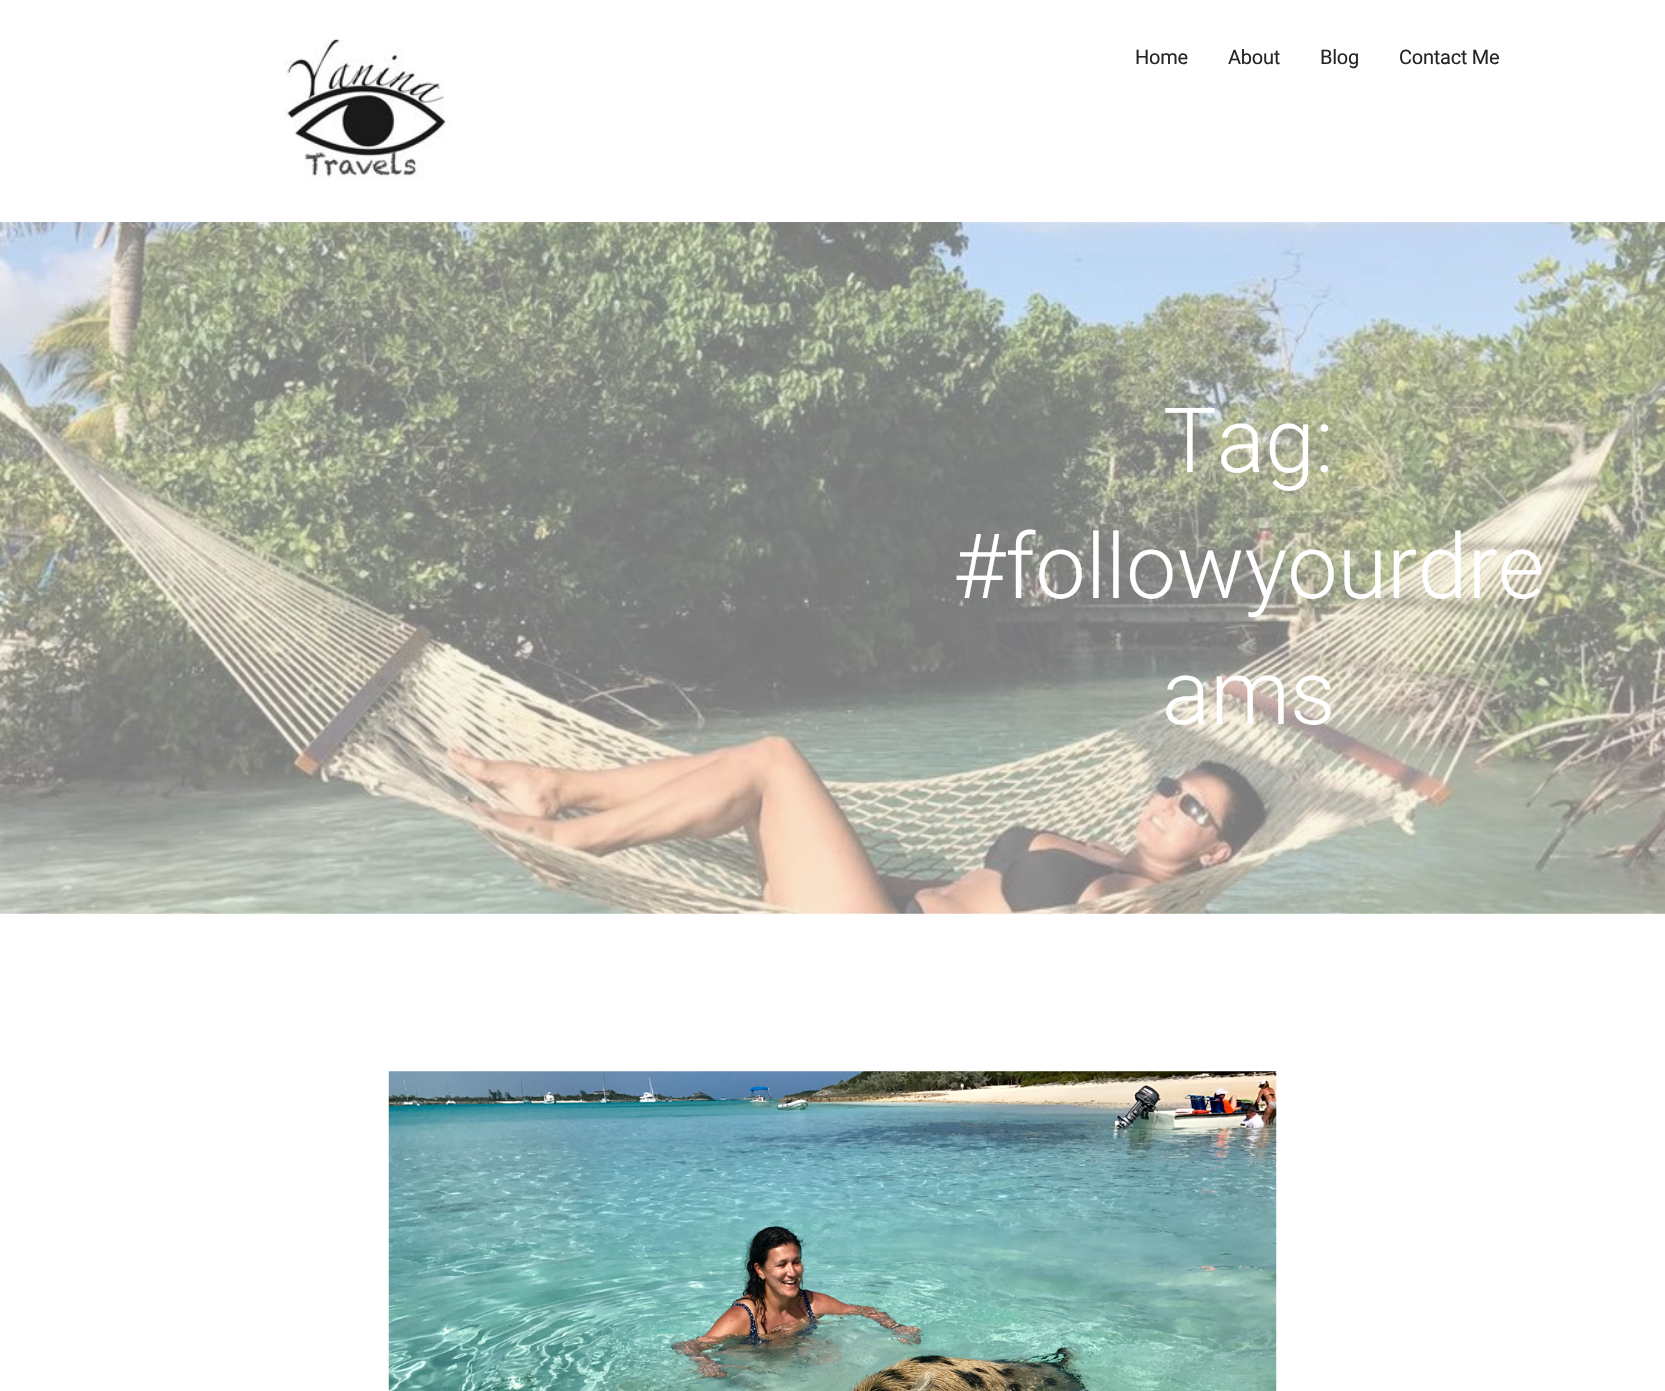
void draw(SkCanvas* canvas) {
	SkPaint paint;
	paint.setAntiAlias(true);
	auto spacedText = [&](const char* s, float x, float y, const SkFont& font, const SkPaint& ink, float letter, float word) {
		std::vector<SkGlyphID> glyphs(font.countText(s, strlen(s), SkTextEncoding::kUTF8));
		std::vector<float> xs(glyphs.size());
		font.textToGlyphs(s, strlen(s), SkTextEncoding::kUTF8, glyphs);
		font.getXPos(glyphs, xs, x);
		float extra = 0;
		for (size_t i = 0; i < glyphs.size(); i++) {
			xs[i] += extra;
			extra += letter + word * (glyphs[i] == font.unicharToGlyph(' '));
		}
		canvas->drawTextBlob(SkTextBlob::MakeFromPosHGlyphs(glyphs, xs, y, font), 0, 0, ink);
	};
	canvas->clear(0xffffffff);
	canvas->drawImageRect(SkImages::DeferredFromEncodedData(SkData::MakeFromFileName("img1.png")), SkRect::MakeXYWH(284, 38, 170, 141), SkSamplingOptions());
	SkFont f1(fontMgr->matchFamilyStyle("Roboto", SkFontStyle::Normal()), 20);
	f1.setSubpixel(true);
	paint.setColor(0xff252525);
	spacedText("Home", 1135, 64, f1, paint, -0.25, 0);
	spacedText("About", 1228, 64, f1, paint, -0.25, 0);
	spacedText("Blog", 1320, 64, f1, paint, -0.25, 0);
	spacedText("Contact Me", 1399, 64, f1, paint, -0.25, 0);
	canvas->drawImageRect(SkImages::DeferredFromEncodedData(SkData::MakeFromFileName("img2.png")), SkRect::MakeXYWH(0, 222, 1665, 692), SkSamplingOptions());
	SkFont f2(fontMgr->matchFamilyStyle("Roboto", SkFontStyle(300, SkFontStyle::kNormal_Width, SkFontStyle::kUpright_Slant)), 90);
	f2.setSubpixel(true);
	paint.setColor(0xffffffff);
	canvas->drawString("Tag:", 1163, 472, f2, paint);
	canvas->drawString("#followyourdre", 953, 598, f2, paint);
	canvas->drawString("ams", 1162, 724, f2, paint);
	canvas->drawImageRect(SkImages::DeferredFromEncodedData(SkData::MakeFromFileName("img3.png")), SkRect::MakeXYWH(388, 1071, 889, 320), SkSamplingOptions());
}
